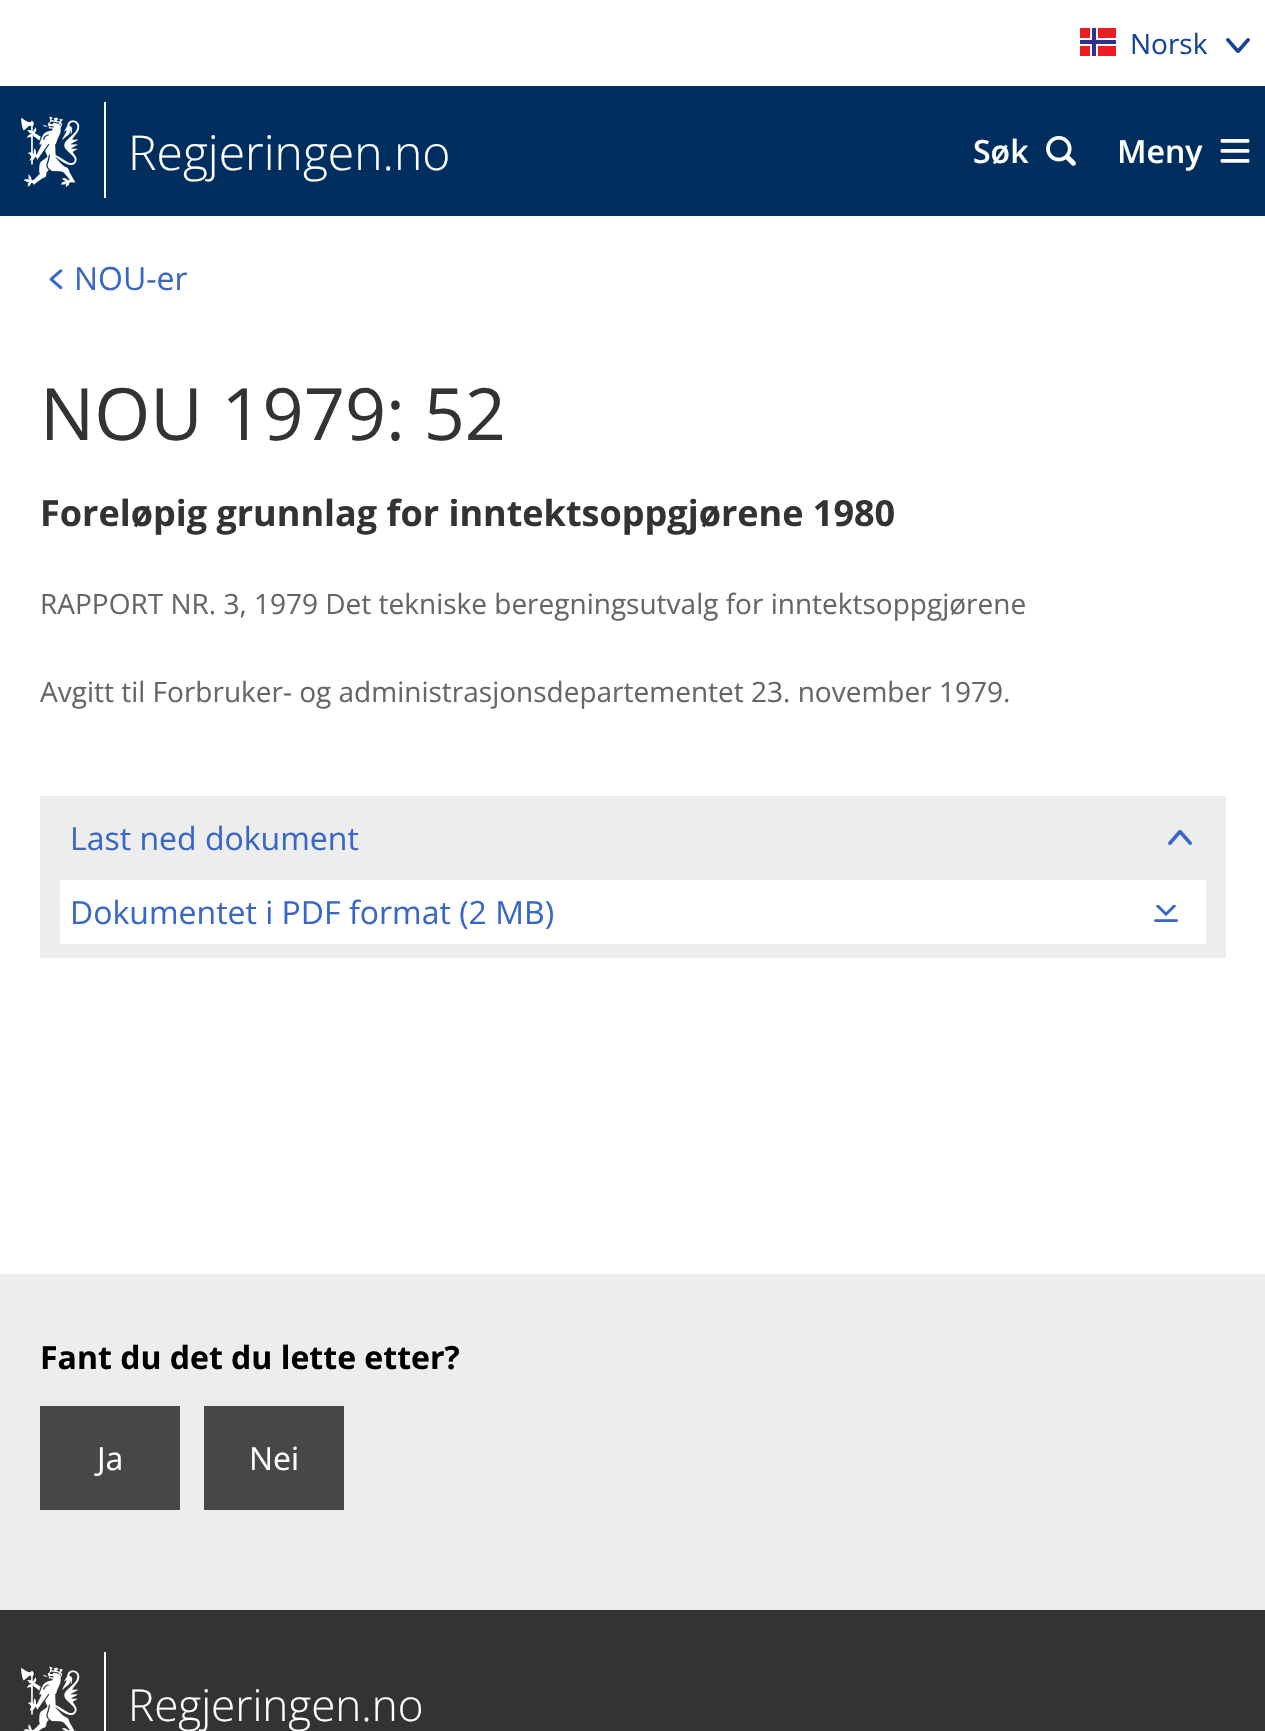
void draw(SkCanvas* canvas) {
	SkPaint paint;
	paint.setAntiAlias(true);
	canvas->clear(0xffffffff);
	canvas->drawImageRect(SkImages::DeferredFromEncodedData(SkData::MakeFromFileName("img1.png")), SkRect::MakeXYWH(1080, 28, 36, 28), SkSamplingOptions());
	SkFont f1(fontMgr->matchFamilyStyle("Open Sans", SkFontStyle::Normal()), 28);
	f1.setSubpixel(true);
	paint.setColor(0xff144696);
	canvas->drawString("Norsk", 1130, 54, f1, paint);
	canvas->drawImageRect(SkImages::DeferredFromEncodedData(SkData::MakeFromFileName("img2.png")), SkRect::MakeXYWH(1226, 38, 24, 15), SkSamplingOptions());
	paint.setColor(0xff002e5e);
	canvas->drawRect(SkRect::MakeXYWH(0, 86, 1265, 130), paint);
	canvas->drawImageRect(SkImages::DeferredFromEncodedData(SkData::MakeFromFileName("img3.png")), SkRect::MakeXYWH(21, 116, 59, 72), SkSamplingOptions());
	paint.setColor(0xffffffff);
	canvas->drawRect(SkRect::MakeXYWH(104, 102, 2, 96), paint);
	SkFont f2(fontMgr->matchFamilyStyle("Open Sans", SkFontStyle(300, SkFontStyle::kNormal_Width, SkFontStyle::kUpright_Slant)), 48);
	f2.setSubpixel(true);
	canvas->drawString("Regjeringen.no", 128, 170, f2, paint);
	SkFont f3(fontMgr->matchFamilyStyle("Open Sans", SkFontStyle(600, SkFontStyle::kNormal_Width, SkFontStyle::kUpright_Slant)), 32);
	f3.setSubpixel(true);
	canvas->drawString("Søk", 973, 163, f3, paint);
	canvas->drawImageRect(SkImages::DeferredFromEncodedData(SkData::MakeFromFileName("img4.png")), SkRect::MakeXYWH(1046, 136, 30, 30), SkSamplingOptions());
	canvas->drawString("Meny", 1117, 163, f3, paint);
	canvas->drawImageRect(SkImages::DeferredFromEncodedData(SkData::MakeFromFileName("img5.png")), SkRect::MakeXYWH(1220, 139, 30, 24), SkSamplingOptions());
	canvas->drawImageRect(SkImages::DeferredFromEncodedData(SkData::MakeFromFileName("img6.png")), SkRect::MakeXYWH(49, 269, 14, 21), SkSamplingOptions());
	SkFont f4(fontMgr->matchFamilyStyle("Open Sans", SkFontStyle::Normal()), 32);
	f4.setSubpixel(true);
	paint.setColor(0xff3867c8);
	canvas->drawString("NOU-er", 74, 290, f4, paint);
	SkFont f5(fontMgr->matchFamilyStyle("Open Sans", SkFontStyle::Normal()), 72);
	f5.setSubpixel(true);
	paint.setColor(0xff333333);
	canvas->drawString("NOU 1979: 52", 40, 440, f5, paint);
	SkFont f6(fontMgr->matchFamilyStyle("Open Sans", SkFontStyle::Bold()), 36);
	f6.setSubpixel(true);
	canvas->drawString("Foreløpig grunnlag for inntektsoppgjørene 1980", 40, 526, f6, paint);
	paint.setColor(0xff666666);
	canvas->drawString("RAPPORT NR. 3, 1979 Det tekniske beregningsutvalg for inntektsoppgjørene", 40, 614, f1, paint);
	canvas->drawString("Avgitt til Forbruker- og administrasjonsdepartementet 23. november 1979.", 40, 702, f1, paint);
	paint.setColor(0xffededed);
	canvas->drawRect(SkRect::MakeXYWH(40, 796, 1186, 162), paint);
	paint.setColor(0xff3867c8);
	canvas->drawString("Last ned dokument", 70, 850, f4, paint);
	canvas->drawImageRect(SkImages::DeferredFromEncodedData(SkData::MakeFromFileName("img7.png")), SkRect::MakeXYWH(1168, 830, 24, 15), SkSamplingOptions());
	paint.setColor(0xffffffff);
	canvas->drawRect(SkRect::MakeXYWH(60, 880, 1146, 64), paint);
	paint.setColor(0xff3867c8);
	canvas->drawString("Dokumentet i PDF format (2 MB)", 70, 924, f4, paint);
	canvas->drawImageRect(SkImages::DeferredFromEncodedData(SkData::MakeFromFileName("img8.png")), SkRect::MakeXYWH(1154, 905, 24, 17), SkSamplingOptions());
	paint.setColor(0xffededed);
	canvas->drawRect(SkRect::MakeXYWH(0, 1274, 1265, 336), paint);
	SkFont f7(fontMgr->matchFamilyStyle("Open Sans", SkFontStyle::Bold()), 32);
	f7.setSubpixel(true);
	paint.setColor(0xff000000);
	canvas->drawString("Fant du det du lette etter?", 40, 1369, f7, paint);
	paint.setColor(0xff474747);
	canvas->drawRect(SkRect::MakeXYWH(40, 1406, 140, 104), paint);
	paint.setColor(0xffffffff);
	canvas->drawString("Ja", 97, 1470, f4, paint);
	paint.setColor(0xff474747);
	canvas->drawRect(SkRect::MakeXYWH(204, 1406, 140, 104), paint);
	paint.setColor(0xffffffff);
	canvas->drawString("Nei", 249, 1470, f4, paint);
	paint.setColor(0xff333333);
	canvas->drawRect(SkRect::MakeXYWH(0, 1610, 1265, 121), paint);
	canvas->drawImageRect(SkImages::DeferredFromEncodedData(SkData::MakeFromFileName("img9.png")), SkRect::MakeXYWH(21, 1666, 59, 65), SkSamplingOptions());
	paint.setColor(0xffffffff);
	canvas->drawRect(SkRect::MakeXYWH(104, 1652, 2, 79), paint);
	SkFont f8(fontMgr->matchFamilyStyle("Open Sans", SkFontStyle(300, SkFontStyle::kNormal_Width, SkFontStyle::kUpright_Slant)), 44);
	f8.setSubpixel(true);
	canvas->drawString("Regjeringen.no", 128, 1721, f8, paint);
}
